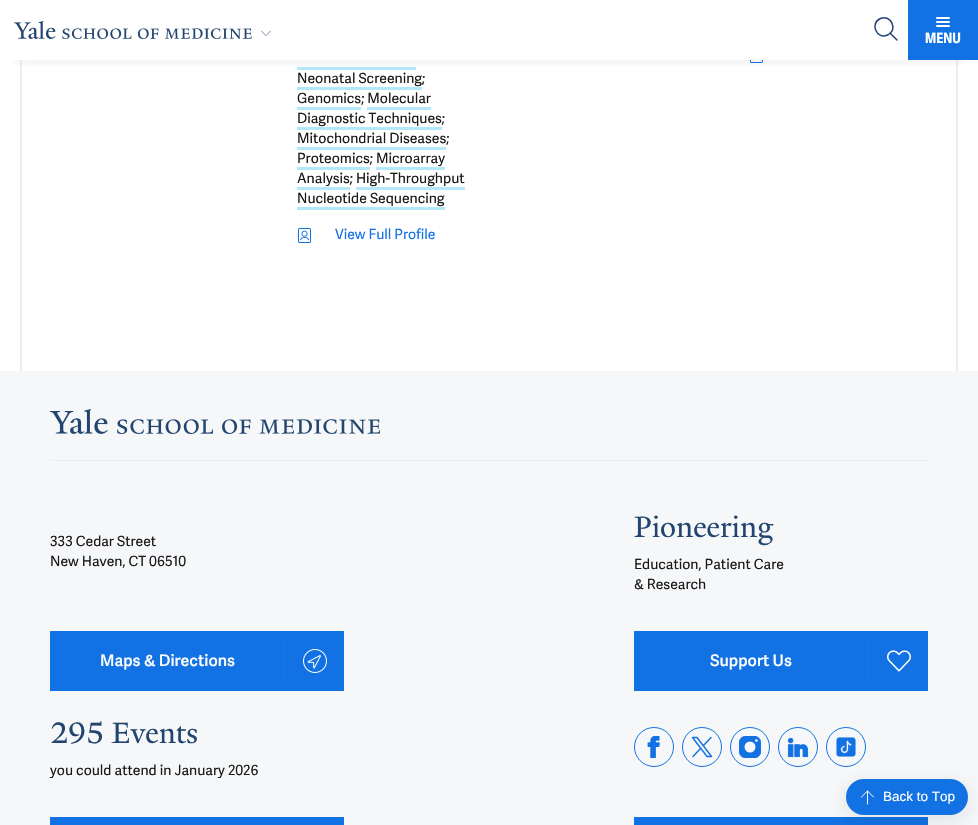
void draw(SkCanvas* canvas) {
	SkPaint paint;
	paint.setAntiAlias(true);
	auto svgPath = [&](const char* data, bool evenOdd = false) {
		SkPath result = *SkParsePath::FromSVGString(data);
		if (evenOdd) result.setFillType(SkPathFillType::kEvenOdd);
		return result;
	};
	canvas->clear(0xffffffff);
	paint.setColor(0xffebedf0);
	canvas->drawRect(SkRect::MakeXYWH(956, 60, 2, 311), paint);
	canvas->drawRect(SkRect::MakeXYWH(20, 60, 2, 311), paint);
	canvas->drawImageRect(SkImages::DeferredFromEncodedData(SkData::MakeFromFileName("img2.png")), SkRect::MakeXYWH(750, 60, 13, 3), SkSamplingOptions());
	paint.setColor(0xffb4e7f8);
	canvas->drawRect(SkRect::MakeXYWH(297, 67, 119, 3), paint);
	canvas->save();
	canvas->clipRect(SkRect::MakeXYWH(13, 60, 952, 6));
	paint.setColor(0x1a191919);
	paint.setMaskFilter(SkMaskFilter::MakeBlur(kNormal_SkBlurStyle, 7));
	canvas->drawRect(SkRect::MakeXYWH(14, 28, 950, 32), paint);
	paint.setMaskFilter(nullptr);
	canvas->restore();
	canvas->drawImageRect(SkImages::DeferredFromEncodedData(SkData::MakeFromFileName("img1.png")), SkRect::MakeXYWH(14, 21, 238, 18), SkSamplingOptions());
	paint.setStroke(true);
	paint.setStrokeWidth(0.6);
	paint.setStrokeCap(SkPaint::kRound_Cap);
	paint.setStrokeJoin(SkPaint::kRound_Join);
	paint.setColor(0xff224570);
	canvas->drawPath(svgPath("M270.5 31C264.5 37 267.5 37 261.5 31"), paint);
	paint.setStrokeWidth(1.5);
	canvas->drawPath(svgPath("M880.5 18.5C891 14 898.5 30.5 887.5 35C876.5 40 869.5 23 880.5 18.5ZM890 33L897 40"), paint);
	paint.setStroke(false);
	paint.setColor(0xff1271e3);
	canvas->drawRect(SkRect::MakeXYWH(908, 0, 70, 60), paint);
	paint.setColor(0xffffffff);
	canvas->drawRoundRect(SkRect::MakeXYWH(936, 17, 14, 2), 1, 1, paint);
	canvas->drawRoundRect(SkRect::MakeXYWH(936, 21, 14, 2), 1, 1, paint);
	canvas->drawRoundRect(SkRect::MakeXYWH(936, 25, 14, 2), 1, 1, paint);
	SkFont f1(fontMgr->matchFamilyStyle("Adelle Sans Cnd", SkFontStyle::Bold()), 14);
	f1.setSubpixel(true);
	canvas->drawString("MENU", 925, 43, f1, paint);
	SkFont f2(fontMgr->matchFamilyStyle("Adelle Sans", SkFontStyle::Normal()), 14);
	f2.setSubpixel(true);
	paint.setColor(0xff191919);
	canvas->drawString("Neonatal Screening;", 297, 83, f2, paint);
	paint.setColor(0xffb4e7f8);
	canvas->drawRect(SkRect::MakeXYWH(297, 87, 125, 3), paint);
	paint.setColor(0xff191919);
	canvas->drawString("Genomics; Molecular", 297, 103, f2, paint);
	paint.setColor(0xffb4e7f8);
	canvas->drawRect(SkRect::MakeXYWH(297, 107, 64, 3), paint);
	paint.setColor(0xff191919);
	canvas->drawString("Diagnostic Techniques;", 297, 123, f2, paint);
	paint.setColor(0xffb4e7f8);
	canvas->drawRect(SkRect::MakeXYWH(367, 107, 64, 3), paint);
	canvas->drawRect(SkRect::MakeXYWH(297, 127, 145, 3), paint);
	paint.setColor(0xff191919);
	canvas->drawString("Mitochondrial Diseases;", 297, 143, f2, paint);
	paint.setColor(0xffb4e7f8);
	canvas->drawRect(SkRect::MakeXYWH(297, 147, 149, 3), paint);
	paint.setColor(0xff191919);
	canvas->drawString("Proteomics; Microarray", 297, 163, f2, paint);
	paint.setColor(0xffb4e7f8);
	canvas->drawRect(SkRect::MakeXYWH(297, 167, 73, 3), paint);
	paint.setColor(0xff191919);
	canvas->drawString("Analysis; High-Throughput", 297, 183, f2, paint);
	paint.setColor(0xffb4e7f8);
	canvas->drawRect(SkRect::MakeXYWH(376, 167, 69, 3), paint);
	canvas->drawRect(SkRect::MakeXYWH(297, 187, 53, 3), paint);
	paint.setColor(0xff191919);
	canvas->drawString("Nucleotide Sequencing", 297, 203, f2, paint);
	paint.setColor(0xffb4e7f8);
	canvas->drawRect(SkRect::MakeXYWH(356, 187, 109, 3), paint);
	canvas->drawRect(SkRect::MakeXYWH(297, 207, 148, 3), paint);
	canvas->drawImageRect(SkImages::DeferredFromEncodedData(SkData::MakeFromFileName("img3.png")), SkRect::MakeXYWH(298, 228, 13, 15), SkSamplingOptions());
	paint.setColor(0xff1271e3);
	canvas->drawString("View Full Profile", 335, 239, f2, paint);
	paint.setColor(0xfff6f7f9);
	canvas->drawRect(SkRect::MakeXYWH(0, 371, 978, 454), paint);
	paint.setColor(0xffebedf0);
	canvas->drawRect(SkRect::MakeXYWH(50, 460, 878, 1), paint);
	canvas->drawImageRect(SkImages::DeferredFromEncodedData(SkData::MakeFromFileName("img4.png")), SkRect::MakeXYWH(50, 409, 330, 25), SkSamplingOptions());
	paint.setColor(0xff191919);
	canvas->drawString("333 Cedar Street", 50, 546, f2, paint);
	canvas->drawString("New Haven, CT 06510", 50, 566, f2, paint);
	paint.setColor(0xff1271e3);
	canvas->drawRect(SkRect::MakeXYWH(50, 631, 294, 60), paint);
	SkFont f3(fontMgr->matchFamilyStyle("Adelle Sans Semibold", SkFontStyle(600, SkFontStyle::kNormal_Width, SkFontStyle::kUpright_Slant)), 16);
	f3.setSubpixel(true);
	paint.setColor(0xffffffff);
	canvas->drawString("Maps & Directions", 100, 666, f3, paint);
	paint.setColor(0xff137bf8);
	canvas->drawRect(SkRect::MakeXYWH(284, 644, 1, 34), paint);
	canvas->drawImageRect(SkImages::DeferredFromEncodedData(SkData::MakeFromFileName("img5.png")), SkRect::MakeXYWH(303, 649, 24, 24), SkSamplingOptions());
	SkFont f4(fontMgr->matchFamilyStyle("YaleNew", SkFontStyle::Normal()), 32);
	f4.setSubpixel(true);
	paint.setColor(0xff224570);
	canvas->drawString("Pioneering", 634, 537, f4, paint);
	paint.setColor(0xff191919);
	canvas->drawString("Education, Patient Care", 634, 569, f2, paint);
	canvas->drawString("& Research", 634, 589, f2, paint);
	paint.setColor(0xff1271e3);
	canvas->drawRect(SkRect::MakeXYWH(634, 631, 294, 60), paint);
	paint.setColor(0xffffffff);
	canvas->drawString("Support Us", 710, 666, f3, paint);
	paint.setColor(0xff137bf8);
	canvas->drawRect(SkRect::MakeXYWH(868, 644, 1, 34), paint);
	canvas->drawImageRect(SkImages::DeferredFromEncodedData(SkData::MakeFromFileName("img6.png")), SkRect::MakeXYWH(887, 650, 24, 22), SkSamplingOptions());
	paint.setColor(0xff224570);
	canvas->drawString("295 Events", 50, 743, f4, paint);
	paint.setColor(0xff191919);
	canvas->drawString("you could attend in January 2026", 50, 775, f2, paint);
	paint.setColor(0xff1271e3);
	canvas->drawRect(SkRect::MakeXYWH(50, 817, 294, 8), paint);
	paint.setStroke(true);
	paint.setStrokeWidth(1);
	paint.setStrokeCap(SkPaint::kButt_Cap);
	paint.setStrokeJoin(SkPaint::kMiter_Join);
	canvas->drawCircle(654, 747, 19.5, paint);
	canvas->drawImageRect(SkImages::DeferredFromEncodedData(SkData::MakeFromFileName("img7.png")), SkRect::MakeXYWH(647, 736, 13, 22), SkSamplingOptions());
	canvas->drawCircle(702, 747, 19.5, paint);
	paint.setStrokeWidth(1.4);
	paint.setStrokeCap(SkPaint::kRound_Cap);
	paint.setStrokeJoin(SkPaint::kRound_Join);
	canvas->drawPath(svgPath("M707 756.5L692.5 737.5H697L711.5 756.5ZM711 737.5L703.5 745.5M693 756.5L700.5 748.5"), paint);
	paint.setStrokeWidth(1);
	paint.setStrokeCap(SkPaint::kButt_Cap);
	paint.setStrokeJoin(SkPaint::kMiter_Join);
	canvas->drawCircle(750, 747, 19.5, paint);
	paint.setStroke(false);
	canvas->drawRoundRect(SkRect::MakeXYWH(739.5, 736.5, 21, 21), 5.5, 5.5, paint);
	paint.setStroke(true);
	canvas->drawRoundRect(SkRect::MakeXYWH(739.5, 736.5, 21, 21), 5.5, 5.5, paint);
	paint.setStroke(false);
	paint.setColor(0xfff6f7f9);
	canvas->drawCircle(750, 747, 5.5, paint);
	canvas->drawCircle(756.4, 740.6, 1.4, paint);
	paint.setStroke(true);
	paint.setColor(0xff1271e3);
	canvas->drawCircle(798, 747, 19.5, paint);
	canvas->drawImageRect(SkImages::DeferredFromEncodedData(SkData::MakeFromFileName("img8.png")), SkRect::MakeXYWH(787, 737, 22, 21), SkSamplingOptions());
	canvas->drawCircle(846, 747, 19.5, paint);
	canvas->drawImageRect(SkImages::DeferredFromEncodedData(SkData::MakeFromFileName("img9.png")), SkRect::MakeXYWH(836, 737, 20, 20), SkSamplingOptions());
	paint.setStroke(false);
	canvas->drawRect(SkRect::MakeXYWH(634, 817, 294, 8), paint);
	paint.setColor(0x1a191919);
	paint.setMaskFilter(SkMaskFilter::MakeBlur(kNormal_SkBlurStyle, 10));
	canvas->drawRoundRect(SkRect::MakeXYWH(846, 784, 122, 36), 18, 18, paint);
	paint.setMaskFilter(nullptr);
	paint.setColor(0xff1271e3);
	canvas->drawRoundRect(SkRect::MakeXYWH(846, 779, 122, 36), 18, 18, paint);
	paint.setStroke(true);
	paint.setStrokeCap(SkPaint::kRound_Cap);
	paint.setStrokeJoin(SkPaint::kRound_Join);
	paint.setColor(0xffffffff);
	canvas->drawPath(svgPath("M867.5 804V791M873.5 797L867.5 791L861.5 797"), paint);
	SkFont f5(fontMgr->matchFamilyStyle("Liberation Sans", SkFontStyle::Normal()), 13.5);
	f5.setSubpixel(true);
	paint.setStroke(false);
	canvas->drawString("Back to Top", 883, 801, f5, paint);
}
